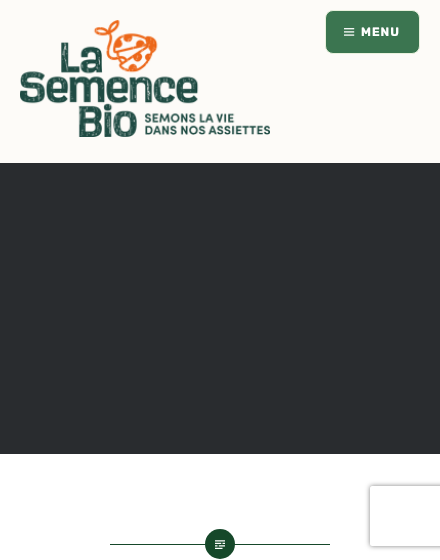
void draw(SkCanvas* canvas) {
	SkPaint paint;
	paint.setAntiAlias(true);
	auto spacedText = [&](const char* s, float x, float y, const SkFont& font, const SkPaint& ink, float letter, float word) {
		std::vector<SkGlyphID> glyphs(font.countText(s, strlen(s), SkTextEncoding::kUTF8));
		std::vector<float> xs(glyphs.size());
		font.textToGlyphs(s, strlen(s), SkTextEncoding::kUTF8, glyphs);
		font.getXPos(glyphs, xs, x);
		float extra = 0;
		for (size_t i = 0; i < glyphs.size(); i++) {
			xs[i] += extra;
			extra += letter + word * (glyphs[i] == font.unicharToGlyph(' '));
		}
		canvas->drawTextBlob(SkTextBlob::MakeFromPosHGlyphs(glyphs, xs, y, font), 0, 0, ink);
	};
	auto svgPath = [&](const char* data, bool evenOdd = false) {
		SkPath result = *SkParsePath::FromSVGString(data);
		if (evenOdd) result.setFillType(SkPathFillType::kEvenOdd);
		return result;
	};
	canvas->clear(0xffffffff);
	paint.setColor(0xfffdfbf8);
	canvas->drawRect(SkRect::MakeXYWH(0, 0, 440, 163), paint);
	canvas->drawImageRect(SkImages::DeferredFromEncodedData(SkData::MakeFromFileName("img1.png")), SkRect::MakeXYWH(20, 20, 250, 117), SkSamplingOptions());
	paint.setColor(0xff3b7550);
	canvas->drawRoundRect(SkRect::MakeXYWH(325.5, 10.5, 94, 43), 7.5, 7.5, paint);
	paint.setStroke(true);
	paint.setStrokeWidth(1);
	paint.setColor(0xffe8f1dd);
	canvas->drawRoundRect(SkRect::MakeXYWH(325.5, 10.5, 94, 43), 7.5, 7.5, paint);
	canvas->drawImageRect(SkImages::DeferredFromEncodedData(SkData::MakeFromFileName("img2.png")), SkRect::MakeXYWH(344, 28, 11, 8), SkSamplingOptions());
	SkFont f1(fontMgr->matchFamilyStyle("Rubik", SkFontStyle::Bold()), 12);
	f1.setSubpixel(true);
	paint.setStroke(false);
	paint.setColor(0xffffffff);
	spacedText("MENU", 361, 36, f1, paint, 1, 0);
	paint.setColor(0xff292c2f);
	canvas->drawRect(SkRect::MakeXYWH(0, 163, 440, 291), paint);
	paint.setColor(0xff16482a);
	canvas->drawRect(SkRect::MakeXYWH(110, 544, 220, 1), paint);
	canvas->drawCircle(220, 544, 15, paint);
	canvas->drawImageRect(SkImages::DeferredFromEncodedData(SkData::MakeFromFileName("img3.png")), SkRect::MakeXYWH(215, 540, 10, 9), SkSamplingOptions());
	canvas->save();
	canvas->clipPath(svgPath("M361 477H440V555H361ZM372 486H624C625 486 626 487 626 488V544C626 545 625 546 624 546H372C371 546 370 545 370 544V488C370 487 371 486 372 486Z", true), true);
	paint.setColor(0xff808080);
	paint.setMaskFilter(SkMaskFilter::MakeBlur(kNormal_SkBlurStyle, 2.5));
	canvas->drawRoundRect(SkRect::MakeXYWH(370, 486, 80, 60), 2, 2, paint);
	paint.setMaskFilter(nullptr);
	canvas->restore();
}
